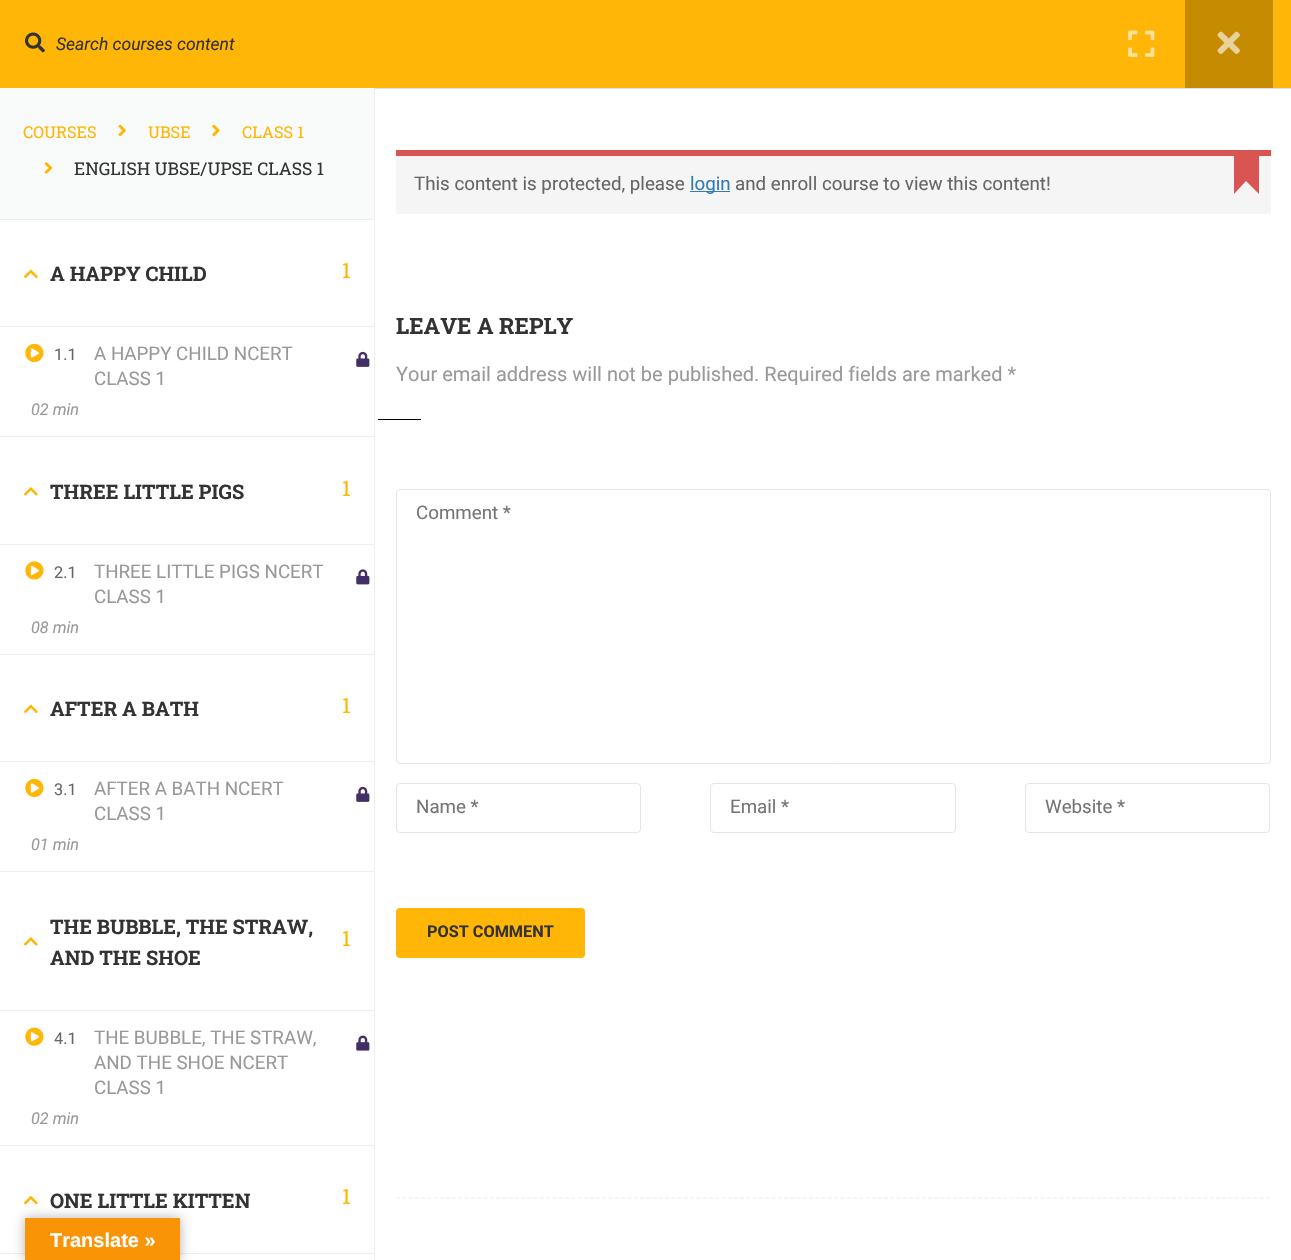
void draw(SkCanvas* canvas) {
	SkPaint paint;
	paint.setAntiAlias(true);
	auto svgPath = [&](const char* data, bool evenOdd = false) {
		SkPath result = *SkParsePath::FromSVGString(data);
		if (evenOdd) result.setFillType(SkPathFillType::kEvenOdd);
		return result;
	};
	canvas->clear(0xffffffff);
	paint.setColor(0xffffb606);
	canvas->drawRect(SkRect::MakeXYWH(0, 0, 1291, 88), paint);
	canvas->drawImageRect(SkImages::DeferredFromEncodedData(SkData::MakeFromFileName("img1.png")), SkRect::MakeXYWH(25, 32, 20, 21), SkSamplingOptions());
	SkFont f1(fontMgr->matchFamilyStyle("Roboto", SkFontStyle::Italic()), 17.5);
	f1.setSubpixel(true);
	paint.setColor(0xff333333);
	canvas->drawString("Search courses content", 56, 50, f1, paint);
	paint.setColor(0xfff9fafa);
	canvas->drawRect(SkRect::MakeXYWH(0, 88, 374, 131), paint);
	SkFont f2(fontMgr->matchFamilyStyle("Roboto Slab", SkFontStyle::Normal()), 16.25);
	f2.setSubpixel(true);
	paint.setColor(0xffffb606);
	canvas->drawString("COURSES", 23, 138, f2, paint);
	canvas->drawImageRect(SkImages::DeferredFromEncodedData(SkData::MakeFromFileName("img2.png")), SkRect::MakeXYWH(118, 124, 8, 13), SkSamplingOptions());
	canvas->drawString("UBSE", 148, 138, f2, paint);
	canvas->drawImageRect(SkImages::DeferredFromEncodedData(SkData::MakeFromFileName("img3.png")), SkRect::MakeXYWH(212, 124, 8, 13), SkSamplingOptions());
	canvas->drawString("CLASS 1", 242, 138, f2, paint);
	canvas->drawImageRect(SkImages::DeferredFromEncodedData(SkData::MakeFromFileName("img4.png")), SkRect::MakeXYWH(44, 162, 9, 12), SkSamplingOptions());
	SkFont f3(fontMgr->matchFamilyStyle("Roboto Slab", SkFontStyle::Normal()), 17.5);
	f3.setSubpixel(true);
	paint.setColor(0xff333333);
	canvas->drawString("ENGLISH UBSE/UPSE CLASS 1", 74, 175, f3, paint);
	paint.setColor(0xffeeeeee);
	canvas->drawRect(SkRect::MakeXYWH(0, 219, 374, 1), paint);
	canvas->drawRect(SkRect::MakeXYWH(0, 436, 374, 1), paint);
	canvas->drawImageRect(SkImages::DeferredFromEncodedData(SkData::MakeFromFileName("img5.png")), SkRect::MakeXYWH(24, 269, 14, 10), SkSamplingOptions());
	SkFont f4(fontMgr->matchFamilyStyle("Roboto Slab", SkFontStyle::Bold()), 20);
	f4.setSubpixel(true);
	paint.setColor(0xff333333);
	canvas->drawString("A HAPPY CHILD", 50, 281, f4, paint);
	SkFont f5(fontMgr->matchFamilyStyle("Roboto Slab", SkFontStyle::Normal()), 21);
	f5.setSubpixel(true);
	paint.setColor(0xffffb606);
	canvas->drawString("1", 342, 278, f5, paint);
	paint.setColor(0xffeeeeee);
	canvas->drawRect(SkRect::MakeXYWH(0, 326, 374, 1), paint);
	canvas->drawImageRect(SkImages::DeferredFromEncodedData(SkData::MakeFromFileName("img6.png")), SkRect::MakeXYWH(25, 343, 19, 20), SkSamplingOptions());
	SkFont f6(fontMgr->matchFamilyStyle("Roboto", SkFontStyle::Normal()), 16.25);
	f6.setSubpixel(true);
	paint.setColor(0xff666666);
	canvas->drawString("1.1", 54, 360, f6, paint);
	SkFont f7(fontMgr->matchFamilyStyle("Roboto", SkFontStyle::Normal()), 18.75);
	f7.setSubpixel(true);
	paint.setColor(0xff999999);
	canvas->drawString("A HAPPY CHILD NCERT", 94, 360, f7, paint);
	canvas->drawString("CLASS 1", 94, 385, f7, paint);
	canvas->drawImageRect(SkImages::DeferredFromEncodedData(SkData::MakeFromFileName("img7.png")), SkRect::MakeXYWH(356, 351, 14, 16), SkSamplingOptions());
	SkFont f8(fontMgr->matchFamilyStyle("Roboto", SkFontStyle::Italic()), 16.25);
	f8.setSubpixel(true);
	canvas->drawString("02 min", 31, 415, f8, paint);
	paint.setColor(0xffeeeeee);
	canvas->drawRect(SkRect::MakeXYWH(0, 654, 374, 1), paint);
	canvas->drawImageRect(SkImages::DeferredFromEncodedData(SkData::MakeFromFileName("img8.png")), SkRect::MakeXYWH(24, 487, 14, 9), SkSamplingOptions());
	paint.setColor(0xff333333);
	canvas->drawString("THREE LITTLE PIGS", 50, 499, f4, paint);
	paint.setColor(0xffffb606);
	canvas->drawString("1", 342, 496, f5, paint);
	paint.setColor(0xffeeeeee);
	canvas->drawRect(SkRect::MakeXYWH(0, 544, 374, 1), paint);
	canvas->drawImageRect(SkImages::DeferredFromEncodedData(SkData::MakeFromFileName("img9.png")), SkRect::MakeXYWH(25, 561, 19, 19), SkSamplingOptions());
	paint.setColor(0xff666666);
	canvas->drawString("2.1", 54, 578, f6, paint);
	paint.setColor(0xff999999);
	canvas->drawString("THREE LITTLE PIGS NCERT", 94, 578, f7, paint);
	canvas->drawString("CLASS 1", 94, 603, f7, paint);
	canvas->drawImageRect(SkImages::DeferredFromEncodedData(SkData::MakeFromFileName("img10.png")), SkRect::MakeXYWH(356, 569, 14, 16), SkSamplingOptions());
	canvas->drawString("08 min", 31, 633, f8, paint);
	paint.setColor(0xffeeeeee);
	canvas->drawRect(SkRect::MakeXYWH(0, 871, 374, 1), paint);
	canvas->drawImageRect(SkImages::DeferredFromEncodedData(SkData::MakeFromFileName("img5.png")), SkRect::MakeXYWH(24, 704, 14, 10), SkSamplingOptions());
	paint.setColor(0xff333333);
	canvas->drawString("AFTER A BATH", 50, 716, f4, paint);
	paint.setColor(0xffffb606);
	canvas->drawString("1", 342, 713, f5, paint);
	paint.setColor(0xffeeeeee);
	canvas->drawRect(SkRect::MakeXYWH(0, 761, 374, 1), paint);
	canvas->drawImageRect(SkImages::DeferredFromEncodedData(SkData::MakeFromFileName("img6.png")), SkRect::MakeXYWH(25, 778, 19, 20), SkSamplingOptions());
	paint.setColor(0xff666666);
	canvas->drawString("3.1", 54, 795, f6, paint);
	paint.setColor(0xff999999);
	canvas->drawString("AFTER A BATH NCERT", 94, 795, f7, paint);
	canvas->drawString("CLASS 1", 94, 820, f7, paint);
	canvas->drawImageRect(SkImages::DeferredFromEncodedData(SkData::MakeFromFileName("img7.png")), SkRect::MakeXYWH(356, 786, 14, 16), SkSamplingOptions());
	canvas->drawString("01 min", 31, 850, f8, paint);
	paint.setColor(0xffeeeeee);
	canvas->drawRect(SkRect::MakeXYWH(0, 1145, 374, 1), paint);
	canvas->drawImageRect(SkImages::DeferredFromEncodedData(SkData::MakeFromFileName("img8.png")), SkRect::MakeXYWH(24, 937, 14, 9), SkSamplingOptions());
	paint.setColor(0xff333333);
	canvas->drawString("THE BUBBLE, THE STRAW,", 50, 934, f4, paint);
	paint.setColor(0xffffb606);
	canvas->drawString("1", 342, 946, f5, paint);
	paint.setColor(0xff333333);
	canvas->drawString("AND THE SHOE", 50, 965, f4, paint);
	paint.setColor(0xffeeeeee);
	canvas->drawRect(SkRect::MakeXYWH(0, 1010, 374, 1), paint);
	canvas->drawImageRect(SkImages::DeferredFromEncodedData(SkData::MakeFromFileName("img11.png")), SkRect::MakeXYWH(25, 1027, 19, 19), SkSamplingOptions());
	paint.setColor(0xff666666);
	canvas->drawString("4.1", 54, 1044, f6, paint);
	paint.setColor(0xff999999);
	canvas->drawString("THE BUBBLE, THE STRAW,", 94, 1044, f7, paint);
	canvas->drawString("AND THE SHOE NCERT", 94, 1069, f7, paint);
	canvas->drawString("CLASS 1", 94, 1094, f7, paint);
	canvas->drawImageRect(SkImages::DeferredFromEncodedData(SkData::MakeFromFileName("img12.png")), SkRect::MakeXYWH(356, 1035, 14, 16), SkSamplingOptions());
	canvas->drawString("02 min", 31, 1124, f8, paint);
	canvas->drawImageRect(SkImages::DeferredFromEncodedData(SkData::MakeFromFileName("img13.png")), SkRect::MakeXYWH(24, 1196, 14, 9), SkSamplingOptions());
	paint.setColor(0xff333333);
	canvas->drawString("ONE LITTLE KITTEN", 50, 1208, f4, paint);
	paint.setColor(0xffffb606);
	canvas->drawString("1", 342, 1204, f5, paint);
	paint.setColor(0xffeeeeee);
	canvas->drawRect(SkRect::MakeXYWH(0, 1253, 374, 1), paint);
	canvas->drawRect(SkRect::MakeXYWH(374, 88, 1, 1172), paint);
	paint.setColor(0xffd9e0f1);
	canvas->drawRect(SkRect::MakeXYWH(375, 88, 916, 1), paint);
	canvas->drawImageRect(SkImages::DeferredFromEncodedData(SkData::MakeFromFileName("img14.png")), SkRect::MakeXYWH(1128, 30, 27, 27), SkSamplingOptions());
	paint.setColor(0xffc58c02);
	canvas->drawRect(SkRect::MakeXYWH(1185, 0, 88, 88), paint);
	canvas->drawImageRect(SkImages::DeferredFromEncodedData(SkData::MakeFromFileName("img15.png")), SkRect::MakeXYWH(1217, 31, 23, 23), SkSamplingOptions());
	paint.setColor(0xfff5f5f5);
	canvas->drawRect(SkRect::MakeXYWH(396, 156, 875, 58), paint);
	paint.setColor(0xffd85554);
	canvas->drawRect(SkRect::MakeXYWH(396, 150, 875, 6), paint);
	paint.setColor(0xff666666);
	canvas->drawString("This content is protected, please", 414, 190, f7, paint);
	paint.setColor(0xff337ab7);
	canvas->drawRect(SkRect::MakeXYWH(690, 191, 40, 1), paint);
	canvas->drawString("login", 690, 190, f7, paint);
	paint.setColor(0xff666666);
	canvas->drawString("and enroll course to view this content!", 735, 190, f7, paint);
	paint.setColor(0xffd85554);
	canvas->drawRect(SkRect::MakeXYWH(1234, 156, 25, 38), paint);
	paint.setColor(0xfff5f5f5);
	canvas->drawPath(svgPath("M1259 194H1234L1246 181Z"), paint);
	SkFont f9(fontMgr->matchFamilyStyle("Roboto Slab", SkFontStyle::Bold()), 22.5);
	f9.setSubpixel(true);
	paint.setColor(0xff333333);
	canvas->drawString("LEAVE A REPLY", 396, 334, f9, paint);
	SkFont f10(fontMgr->matchFamilyStyle("Roboto", SkFontStyle::Normal()), 20);
	f10.setSubpixel(true);
	paint.setColor(0xff999999);
	canvas->drawString("Your email address will not be published. Required fields are marked *", 396, 381, f10, paint);
	paint.setColor(0xff000000);
	canvas->drawRect(SkRect::MakeXYWH(378, 419, 43, 1), paint);
	paint.setStroke(true);
	paint.setStrokeWidth(1);
	paint.setColor(0xffe3e6e6);
	canvas->drawRoundRect(SkRect::MakeXYWH(396.5, 489.5, 874, 274), 3.5, 3.5, paint);
	paint.setStroke(false);
	paint.setColor(0xff757575);
	canvas->drawString("Comment *", 416, 519, f7, paint);
	paint.setStroke(true);
	paint.setColor(0xffe3e6e6);
	canvas->drawRoundRect(SkRect::MakeXYWH(396.5, 783.5, 244, 49), 3.5, 3.5, paint);
	paint.setStroke(false);
	paint.setColor(0xff757575);
	canvas->drawString("Name *", 416, 813, f7, paint);
	paint.setStroke(true);
	paint.setColor(0xffe3e6e6);
	canvas->drawRoundRect(SkRect::MakeXYWH(710.5, 783.5, 245, 49), 3.5, 3.5, paint);
	paint.setStroke(false);
	paint.setColor(0xff757575);
	canvas->drawString("Email *", 730, 813, f7, paint);
	paint.setStroke(true);
	paint.setColor(0xffe3e6e6);
	canvas->drawRoundRect(SkRect::MakeXYWH(1025.5, 783.5, 244, 49), 3.5, 3.5, paint);
	paint.setStroke(false);
	paint.setColor(0xff757575);
	canvas->drawString("Website *", 1045, 813, f7, paint);
	paint.setColor(0xffffb606);
	canvas->drawRoundRect(SkRect::MakeXYWH(396, 908, 189, 50), 4, 4, paint);
	SkFont f11(fontMgr->matchFamilyStyle("Roboto", SkFontStyle::Bold()), 16.25);
	f11.setSubpixel(true);
	paint.setColor(0xff333333);
	canvas->drawString("POST COMMENT", 427, 937, f11, paint);
	paint.setStroke(true);
	paint.setStrokeWidth(1.2);
	paint.setColor(0xffebebeb);
	paint.setPathEffect(SkDashPathEffect::Make({{3.75f, 2.51f}}, 0));
	canvas->drawPath(svgPath("M396 1198H1271"), paint);
	paint.setPathEffect(nullptr);
	paint.setStroke(false);
	paint.setColor(0x4d000000);
	paint.setMaskFilter(SkMaskFilter::MakeBlur(kNormal_SkBlurStyle, 5.5));
	canvas->drawRect(SkRect::MakeXYWH(25, 1218, 155, 42), paint);
	paint.setMaskFilter(nullptr);
	paint.setColor(0xfff89406);
	canvas->drawRect(SkRect::MakeXYWH(25, 1218, 155, 42), paint);
	SkFont f12(fontMgr->matchFamilyStyle("Liberation Sans", SkFontStyle::Bold()), 20);
	f12.setSubpixel(true);
	paint.setColor(0xffffffff);
	canvas->drawString("Translate »", 50, 1247, f12, paint);
}
